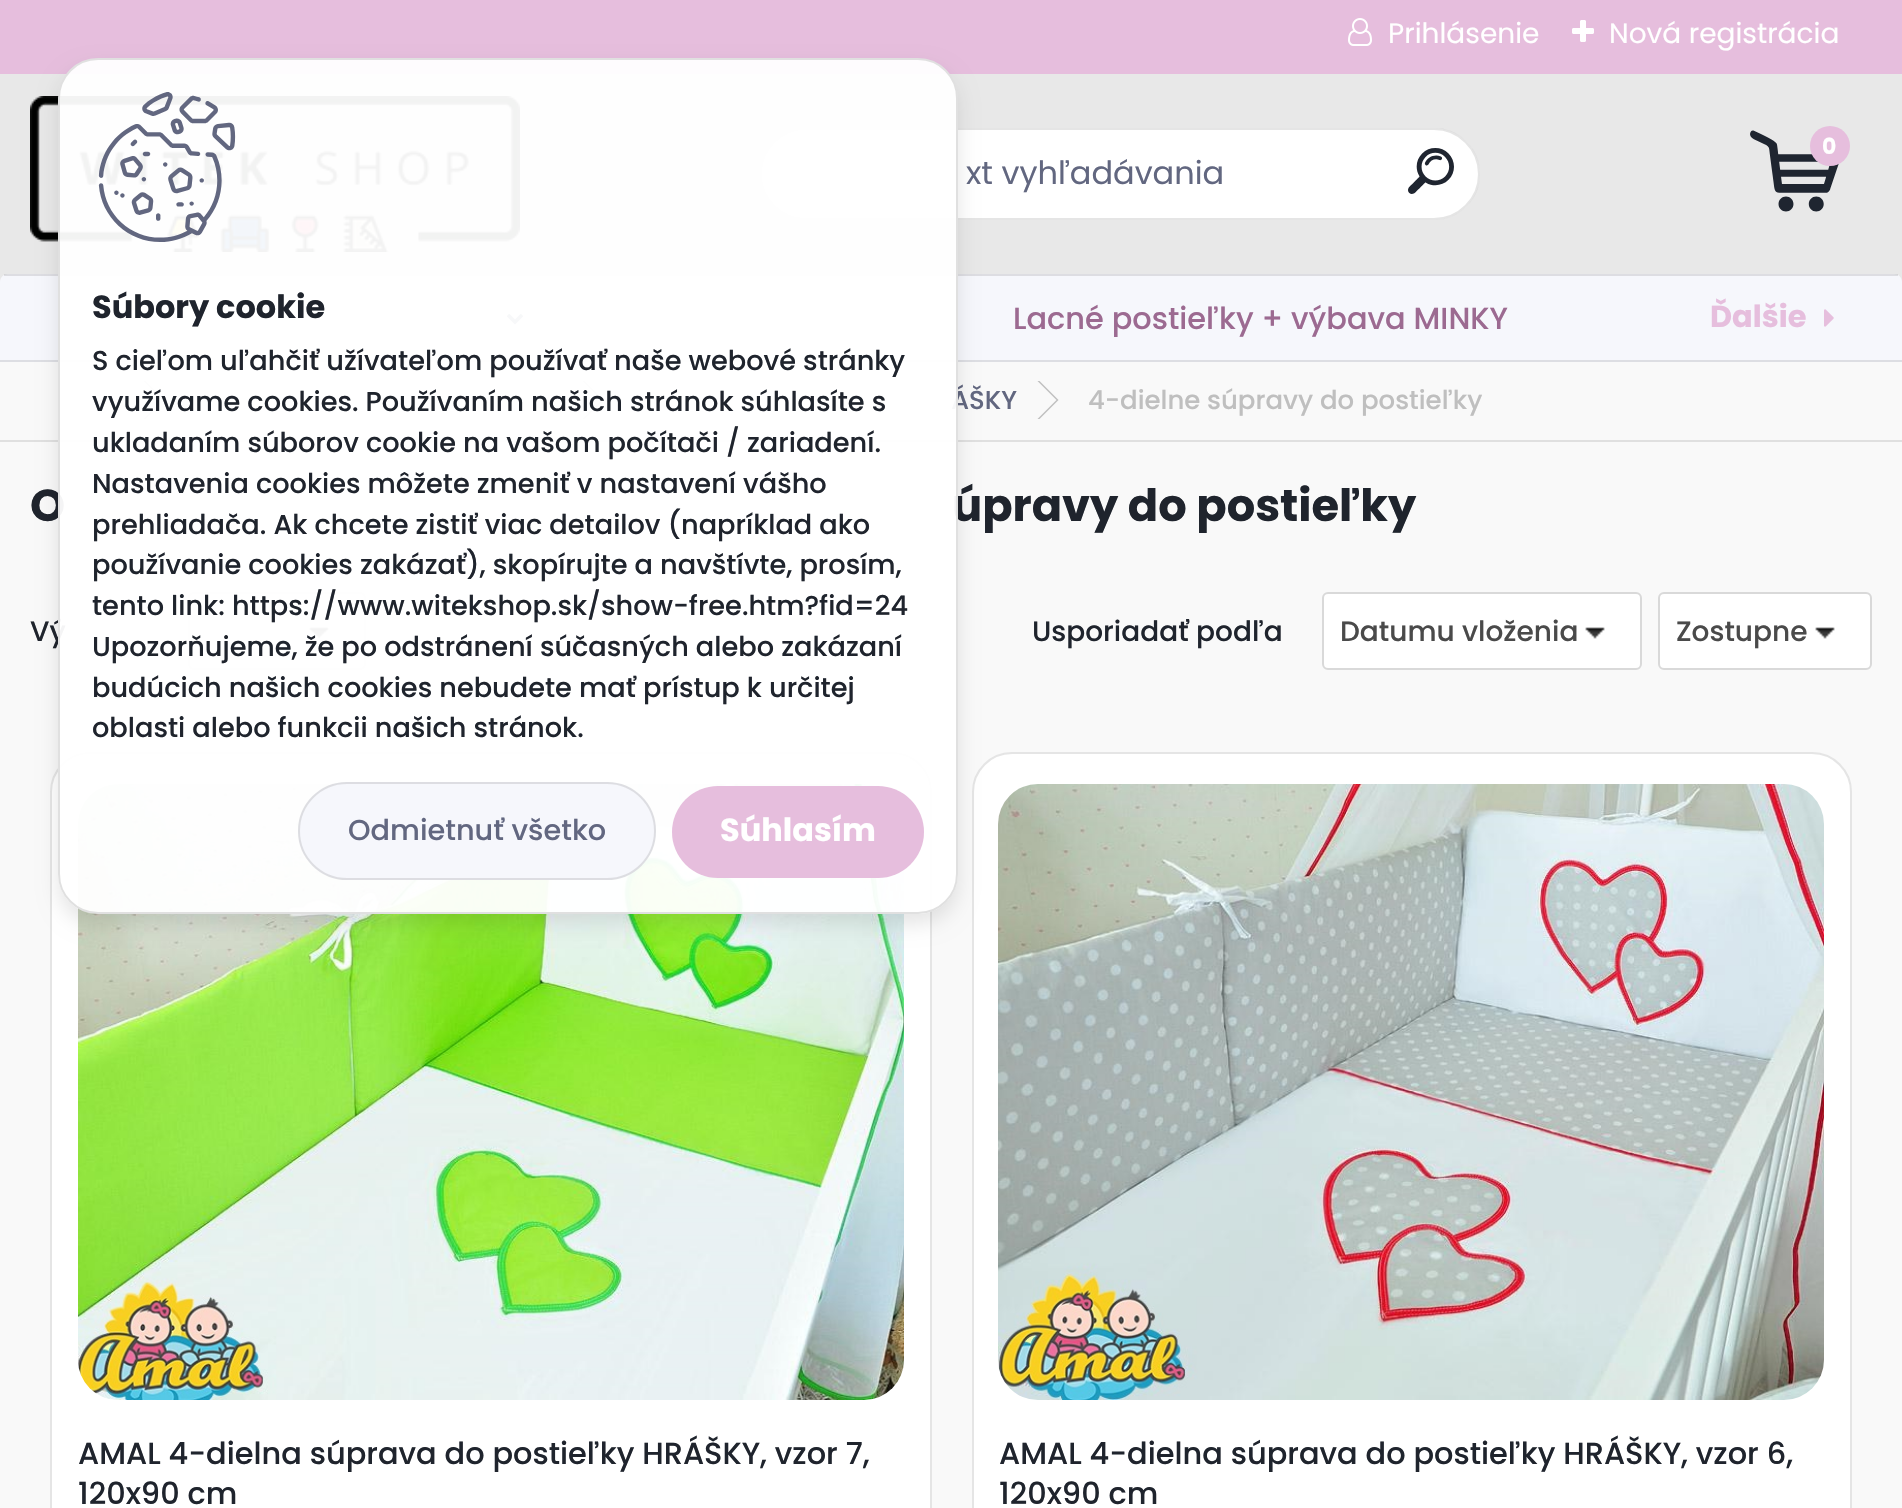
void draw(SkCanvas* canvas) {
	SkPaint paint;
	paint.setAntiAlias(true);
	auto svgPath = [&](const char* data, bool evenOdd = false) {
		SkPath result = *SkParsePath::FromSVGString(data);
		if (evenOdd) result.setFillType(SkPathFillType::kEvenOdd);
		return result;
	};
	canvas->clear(0xffe6bedd);
	canvas->drawImageRect(SkImages::DeferredFromEncodedData(SkData::MakeFromFileName("img1.png")), SkRect::MakeXYWH(1348, 18, 24, 28), SkSamplingOptions());
	SkFont f1(fontMgr->matchFamilyStyle("Poppins", SkFontStyle::Normal()), 28);
	f1.setSubpixel(true);
	paint.setColor(0xffffffff);
	canvas->drawString("Prihlásenie", 1388, 43, f1, paint);
	canvas->drawImageRect(SkImages::DeferredFromEncodedData(SkData::MakeFromFileName("img2.png")), SkRect::MakeXYWH(1572, 20, 22, 22), SkSamplingOptions());
	canvas->drawString("Nová registrácia", 1609, 43, f1, paint);
	paint.setColor(0xffe8e8e8);
	canvas->drawRect(SkRect::MakeXYWH(0, 74, 1902, 208), paint);
	canvas->drawImageRect(SkImages::DeferredFromEncodedData(SkData::MakeFromFileName("img3.png")), SkRect::MakeXYWH(30, 96, 490, 156), SkSamplingOptions());
	canvas->drawImageRect(SkImages::DeferredFromEncodedData(SkData::MakeFromFileName("img4.png")), SkRect::MakeXYWH(1750, 130, 89, 82), SkSamplingOptions());
	paint.setColor(0xffe6bedd);
	canvas->drawCircle(1830, 146, 20, paint);
	SkFont f2(fontMgr->matchFamilyStyle("Poppins", SkFontStyle::Bold()), 22);
	f2.setSubpixel(true);
	paint.setColor(0xffffffff);
	canvas->drawString("0", 1822, 154, f2, paint);
	canvas->drawRoundRect(SkRect::MakeXYWH(760, 128, 720, 92), 46, 46, paint);
	paint.setStroke(true);
	paint.setStrokeWidth(2);
	paint.setColor(0x1a000000);
	canvas->drawRoundRect(SkRect::MakeXYWH(761, 129, 718, 90), 45, 45, paint);
	SkFont f3(fontMgr->matchFamilyStyle("Poppins", SkFontStyle::Normal()), 32);
	f3.setSubpixel(true);
	paint.setStroke(false);
	paint.setColor(0xff626780);
	canvas->drawString("xt vyhľadávania", 966, 184, f3, paint);
	canvas->drawImageRect(SkImages::DeferredFromEncodedData(SkData::MakeFromFileName("img5.png")), SkRect::MakeXYWH(1408, 148, 46, 46), SkSamplingOptions());
	paint.setColor(0xfff6f7fc);
	canvas->drawPath(svgPath("M8 274H1894C1898.5 274 1902 277.5 1902 282V362H0V282C0 277.5 3.5 274 8 274Z"), paint);
	paint.setColor(0x1a000000);
	canvas->drawRect(SkRect::MakeXYWH(4, 274, 1894, 2), paint);
	paint.setColor(0xffdddee3);
	canvas->drawRect(SkRect::MakeXYWH(0, 360, 1902, 2), paint);
	canvas->drawImageRect(SkImages::DeferredFromEncodedData(SkData::MakeFromFileName("img6.png")), SkRect::MakeXYWH(507, 314, 16, 11), SkSamplingOptions());
	SkFont f4(fontMgr->matchFamilyStyle("Poppins", SkFontStyle(500, SkFontStyle::kNormal_Width, SkFontStyle::kUpright_Slant)), 30.4);
	f4.setSubpixel(true);
	paint.setColor(0xff9c6a91);
	canvas->drawString("Lacné postieľky + výbava MINKY", 1013, 329, f4, paint);
	SkFont f5(fontMgr->matchFamilyStyle("Poppins", SkFontStyle::Bold()), 30.4);
	f5.setSubpixel(true);
	paint.setColor(0xffe6bedd);
	canvas->drawString("Ďalšie", 1710, 327, f5, paint);
	canvas->drawImageRect(SkImages::DeferredFromEncodedData(SkData::MakeFromFileName("img7.png")), SkRect::MakeXYWH(1824, 309, 10, 18), SkSamplingOptions());
	paint.setColor(0xfff9f9f9);
	canvas->drawRect(SkRect::MakeXYWH(0, 362, 1902, 1146), paint);
	paint.setColor(0xffe0e0e0);
	canvas->drawRect(SkRect::MakeXYWH(0, 440, 1902, 2), paint);
	paint.setColor(0xffbfbfbf);
	canvas->drawPath(svgPath("M143.5 381H145.5L164.5 400H162.5ZM162.5 400H164.5L145.5 419H143.5Z"), paint);
	canvas->drawPath(svgPath("M582.5 381H584.5L603.5 400H601.5ZM601.5 400H603.5L584.5 419H582.5Z"), paint);
	SkFont f6(fontMgr->matchFamilyStyle("Poppins", SkFontStyle(500, SkFontStyle::kNormal_Width, SkFontStyle::kUpright_Slant)), 26);
	f6.setSubpixel(true);
	paint.setColor(0xff626780);
	canvas->drawString("ÁŠKY", 951, 409, f6, paint);
	paint.setColor(0xffbfbfbf);
	canvas->drawPath(svgPath("M1037.5 381H1039.5L1058.5 400H1056.5ZM1056.5 400H1058.5L1039.5 419H1037.5Z"), paint);
	canvas->drawString("4-dielne súpravy do postieľky", 1088, 409, f6, paint);
	SkFont f7(fontMgr->matchFamilyStyle("Poppins", SkFontStyle::Bold()), 44.75);
	f7.setSubpixel(true);
	paint.setColor(0xff1f242d);
	canvas->drawString("O", 30, 521, f7, paint);
	canvas->drawString("úpravy do postieľky", 952, 521, f7, paint);
	SkFont f8(fontMgr->matchFamilyStyle("Poppins", SkFontStyle(500, SkFontStyle::kNormal_Width, SkFontStyle::kUpright_Slant)), 28);
	f8.setSubpixel(true);
	canvas->drawString("Vý", 30, 641, f8, paint);
	paint.setColor(0xffffffff);
	canvas->drawRoundRect(SkRect::MakeXYWH(189, 593, 176, 76), 5, 5, paint);
	paint.setStroke(true);
	paint.setColor(0xffd9d9d9);
	canvas->drawRoundRect(SkRect::MakeXYWH(189, 593, 176, 76), 5, 5, paint);
	canvas->drawImageRect(SkImages::DeferredFromEncodedData(SkData::MakeFromFileName("img8.png")), SkRect::MakeXYWH(309, 627, 20, 12), SkSamplingOptions());
	paint.setStroke(false);
	paint.setColor(0xff1f242d);
	canvas->drawString("Usporiadať podľa", 1032, 641, f8, paint);
	paint.setColor(0xffffffff);
	canvas->drawRoundRect(SkRect::MakeXYWH(1323, 593, 318, 76), 5, 5, paint);
	paint.setStroke(true);
	paint.setColor(0xffd9d9d9);
	canvas->drawRoundRect(SkRect::MakeXYWH(1323, 593, 318, 76), 5, 5, paint);
	paint.setStroke(false);
	paint.setColor(0xff4a4a4a);
	canvas->drawString("Datumu vloženia", 1340, 641, f8, paint);
	canvas->drawImageRect(SkImages::DeferredFromEncodedData(SkData::MakeFromFileName("img8.png")), SkRect::MakeXYWH(1585, 627, 20, 12), SkSamplingOptions());
	paint.setColor(0xffffffff);
	canvas->drawRoundRect(SkRect::MakeXYWH(1659, 593, 212, 76), 5, 5, paint);
	paint.setStroke(true);
	paint.setColor(0xffd9d9d9);
	canvas->drawRoundRect(SkRect::MakeXYWH(1659, 593, 212, 76), 5, 5, paint);
	paint.setStroke(false);
	paint.setColor(0xff4a4a4a);
	canvas->drawString("Zostupne", 1676, 641, f8, paint);
	canvas->drawImageRect(SkImages::DeferredFromEncodedData(SkData::MakeFromFileName("img8.png")), SkRect::MakeXYWH(1815, 627, 20, 12), SkSamplingOptions());
	paint.setColor(0xffffffff);
	canvas->drawRoundRect(SkRect::MakeXYWH(50, 752, 882, 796), 40, 40, paint);
	paint.setStroke(true);
	paint.setColor(0x1a000000);
	canvas->drawRoundRect(SkRect::MakeXYWH(51, 753, 880, 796), 39, 39, paint);
	canvas->drawImageRect(SkImages::DeferredFromEncodedData(SkData::MakeFromFileName("img9.png")), SkRect::MakeXYWH(78, 784, 826, 616), SkSamplingOptions());
	paint.setStroke(false);
	paint.setColor(0xff1f242d);
	canvas->drawString("AMAL 4-dielna súprava do postieľky HRÁŠKY, vzor 7,", 78, 1464, f4, paint);
	canvas->drawString("120x90 cm", 78, 1504, f4, paint);
	paint.setColor(0xffffffff);
	canvas->drawRoundRect(SkRect::MakeXYWH(972, 752, 880, 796), 40, 40, paint);
	paint.setStroke(true);
	paint.setColor(0x1a000000);
	canvas->drawRoundRect(SkRect::MakeXYWH(973, 753, 878, 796), 39, 39, paint);
	canvas->drawImageRect(SkImages::DeferredFromEncodedData(SkData::MakeFromFileName("img10.png")), SkRect::MakeXYWH(998, 784, 826, 616), SkSamplingOptions());
	paint.setStroke(false);
	paint.setColor(0xff1f242d);
	canvas->drawString("AMAL 4-dielna súprava do postieľky HRÁŠKY, vzor 6,", 999, 1464, f4, paint);
	canvas->drawString("120x90 cm", 999, 1504, f4, paint);
	canvas->save();
	canvas->clipPath(svgPath("M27 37H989V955H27ZM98 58H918C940 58 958 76 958 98V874C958 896 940 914 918 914H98C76 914 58 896 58 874V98C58 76 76 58 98 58Z", true), true);
	paint.setColor(0x1a000000);
	paint.setMaskFilter(SkMaskFilter::MakeBlur(kNormal_SkBlurStyle, 10));
	canvas->drawRoundRect(SkRect::MakeXYWH(58, 68, 900, 856), 40, 40, paint);
	paint.setMaskFilter(nullptr);
	canvas->restore();
	paint.setColor(0xf2ffffff);
	canvas->drawRoundRect(SkRect::MakeXYWH(59, 59, 898, 854), 39, 39, paint);
	paint.setStroke(true);
	paint.setColor(0xffe0e0e0);
	canvas->drawRoundRect(SkRect::MakeXYWH(59, 59, 898, 854), 39, 39, paint);
	canvas->drawImageRect(SkImages::DeferredFromEncodedData(SkData::MakeFromFileName("img11.png")), SkRect::MakeXYWH(98, 92, 138, 150), SkSamplingOptions());
	SkFont f9(fontMgr->matchFamilyStyle("Poppins", SkFontStyle::Bold()), 32);
	f9.setSubpixel(true);
	paint.setStroke(false);
	paint.setColor(0xff1f242d);
	canvas->drawString("Súbory cookie", 92, 318, f9, paint);
	SkFont f10(fontMgr->matchFamilyStyle("Poppins", SkFontStyle(500, SkFontStyle::kNormal_Width, SkFontStyle::kUpright_Slant)), 27.2);
	f10.setSubpixel(true);
	canvas->drawString("S cieľom uľahčiť užívateľom používať naše webové stránky", 92, 370, f10, paint);
	canvas->drawString("využívame cookies. Používaním našich stránok súhlasíte s", 92, 411, f10, paint);
	canvas->drawString("ukladaním súborov cookie na vašom počítači / zariadení.", 92, 452, f10, paint);
	canvas->drawString("Nastavenia cookies môžete zmeniť v nastavení vášho", 92, 493, f10, paint);
	canvas->drawString("prehliadača. Ak chcete zistiť viac detailov (napríklad ako", 92, 534, f10, paint);
	canvas->drawString("používanie cookies zakázať), skopírujte a navštívte, prosím,", 92, 574, f10, paint);
	canvas->drawString("tento link: https://www.witekshop.sk/show-free.htm?fid=24", 92, 615, f10, paint);
	canvas->drawString("Upozorňujeme, že po odstránení súčasných alebo zakázaní", 92, 656, f10, paint);
	canvas->drawString("budúcich našich cookies nebudete mať prístup k určitej", 92, 697, f10, paint);
	canvas->drawString("oblasti alebo funkcii našich stránok.", 92, 737, f10, paint);
	paint.setColor(0xfff6f7fc);
	canvas->drawRoundRect(SkRect::MakeXYWH(298, 782, 358, 98), 49, 49, paint);
	paint.setStroke(true);
	paint.setColor(0x1a000000);
	canvas->drawRoundRect(SkRect::MakeXYWH(299, 783, 356, 96), 48, 48, paint);
	SkFont f11(fontMgr->matchFamilyStyle("Poppins", SkFontStyle(500, SkFontStyle::kNormal_Width, SkFontStyle::kUpright_Slant)), 28.75);
	f11.setSubpixel(true);
	paint.setStroke(false);
	paint.setColor(0xff626780);
	canvas->drawString("Odmietnuť všetko", 348, 840, f11, paint);
	paint.setColor(0xffe6bedd);
	canvas->drawRoundRect(SkRect::MakeXYWH(672, 786, 252, 92), 46, 46, paint);
	paint.setColor(0xffffffff);
	canvas->drawString("Súhlasím", 720, 841, f9, paint);
}
